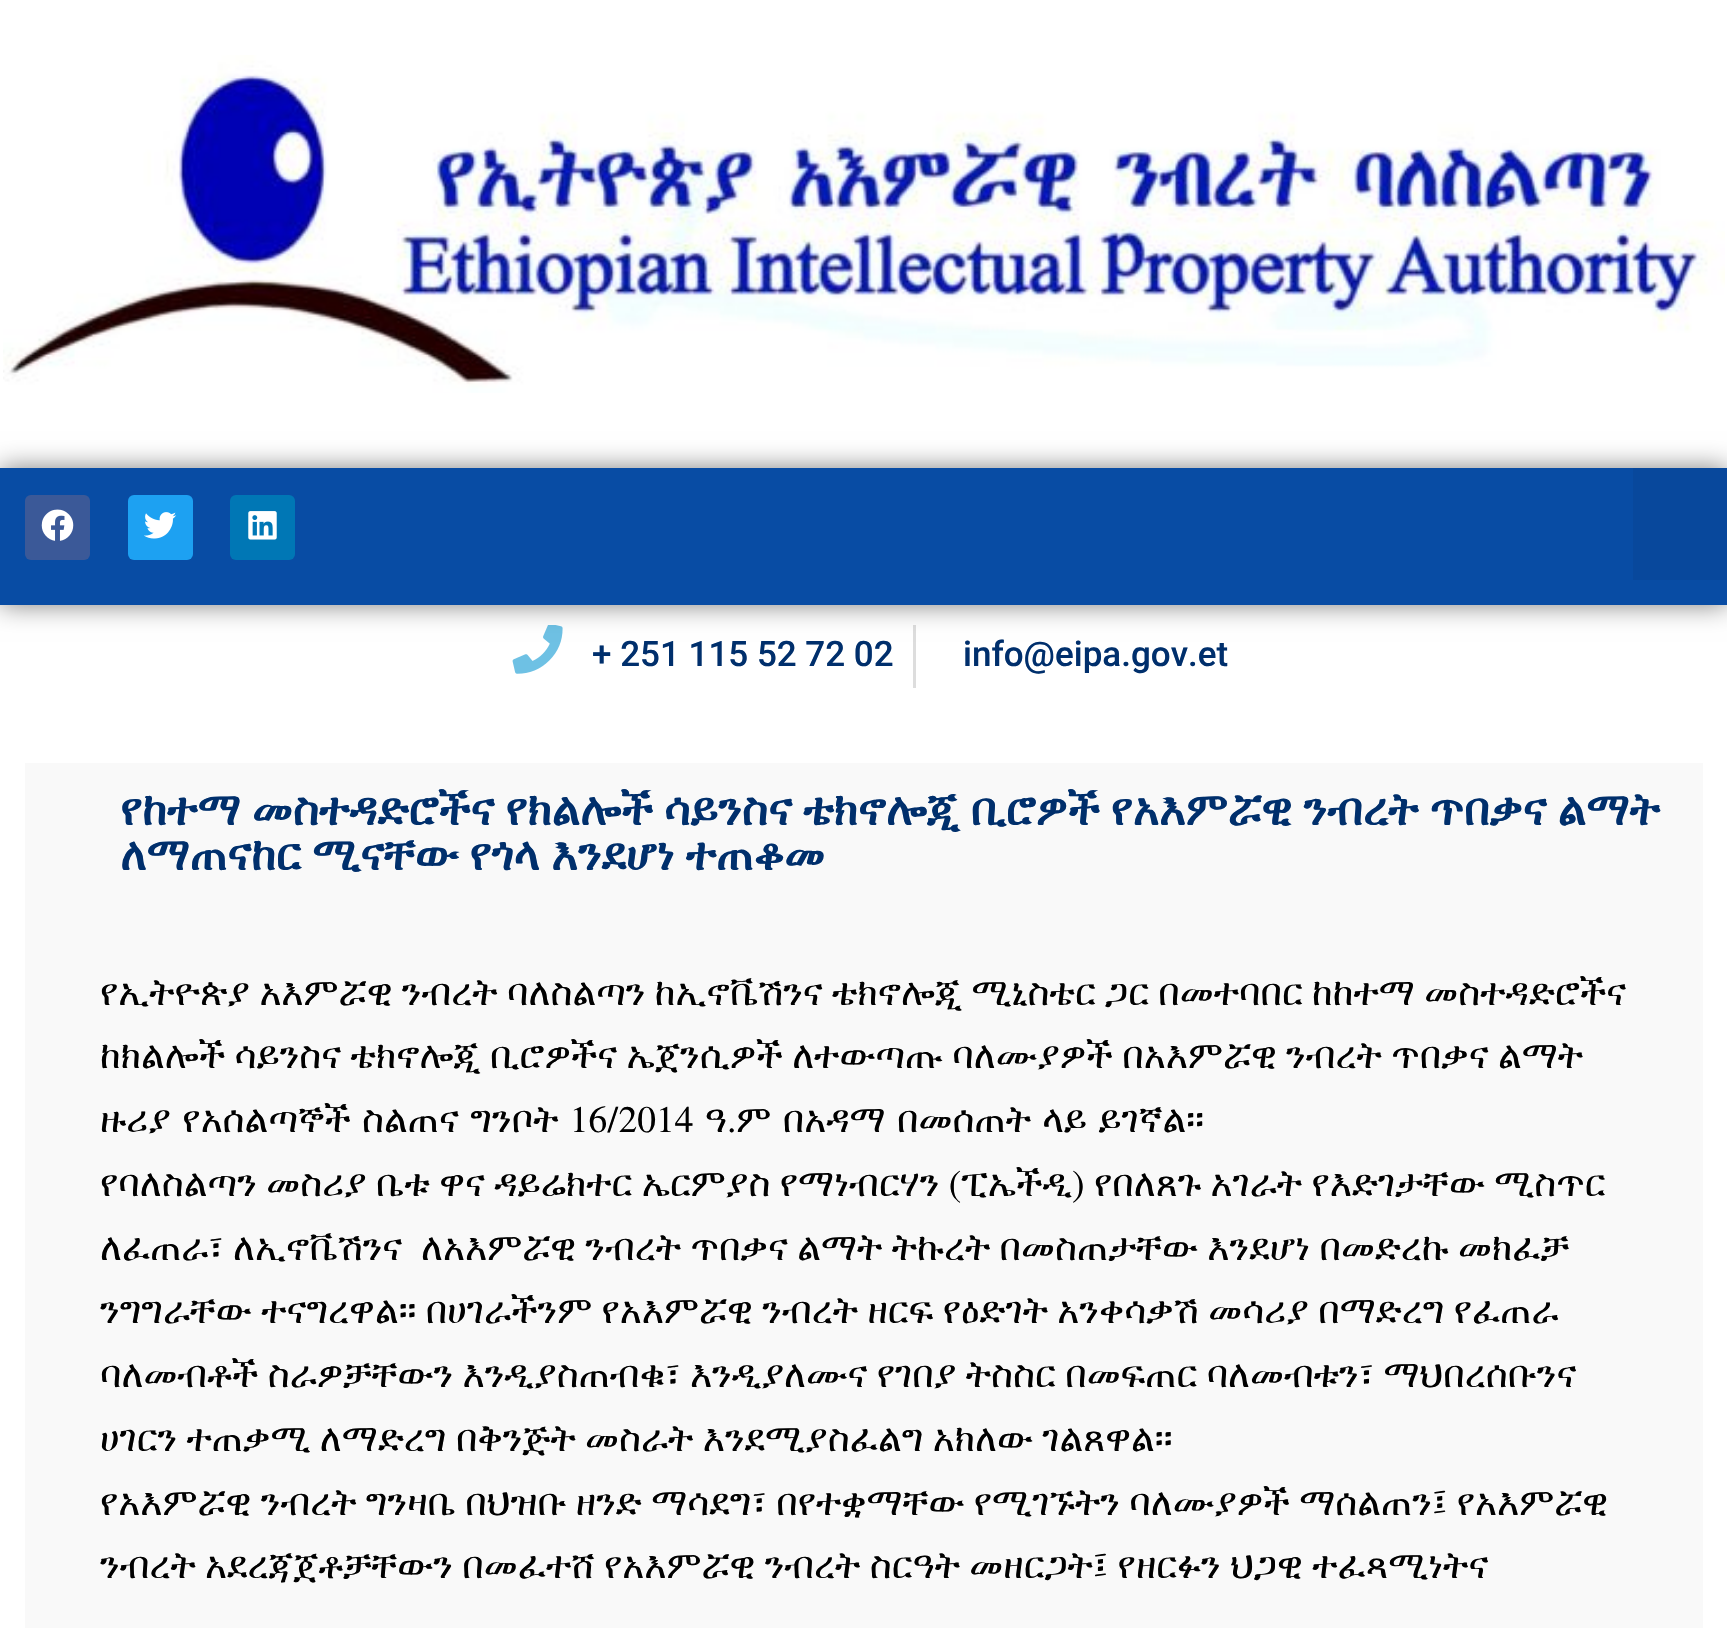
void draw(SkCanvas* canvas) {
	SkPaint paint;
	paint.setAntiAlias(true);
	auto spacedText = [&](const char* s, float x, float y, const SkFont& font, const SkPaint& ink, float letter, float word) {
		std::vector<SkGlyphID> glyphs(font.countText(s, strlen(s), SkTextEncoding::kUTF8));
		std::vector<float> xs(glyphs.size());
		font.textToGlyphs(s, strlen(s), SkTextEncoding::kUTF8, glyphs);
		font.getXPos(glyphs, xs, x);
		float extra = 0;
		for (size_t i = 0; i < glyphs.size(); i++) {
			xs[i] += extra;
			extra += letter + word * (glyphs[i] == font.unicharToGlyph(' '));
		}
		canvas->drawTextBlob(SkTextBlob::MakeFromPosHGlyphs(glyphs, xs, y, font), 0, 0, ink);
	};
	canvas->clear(0xffffffff);
	canvas->drawImageRect(SkImages::DeferredFromEncodedData(SkData::MakeFromFileName("img1.png")), SkRect::MakeXYWH(3, 55, 1722, 338), SkSamplingOptions());
	canvas->drawImageRect(SkImages::DeferredFromEncodedData(SkData::MakeFromFileName("img5.png")), SkRect::MakeXYWH(512, 625, 51, 49), SkSamplingOptions());
	paint.setColor(0xffdddddd);
	canvas->drawRect(SkRect::MakeXYWH(913, 625, 3, 63), paint);
	paint.setColor(0x80000000);
	paint.setMaskFilter(SkMaskFilter::MakeBlur(kNormal_SkBlurStyle, 12.5));
	canvas->drawRect(SkRect::MakeXYWH(0, 468, 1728, 137), paint);
	paint.setMaskFilter(nullptr);
	paint.setColor(0xff084ca4);
	canvas->drawRect(SkRect::MakeXYWH(0, 468, 1727, 137), paint);
	paint.setColor(0xff08489c);
	canvas->drawRect(SkRect::MakeXYWH(1633, 468, 94, 112), paint);
	paint.setColor(0xff3b5998);
	canvas->drawRoundRect(SkRect::MakeXYWH(25, 495, 65, 65), 6, 6, paint);
	canvas->drawImageRect(SkImages::DeferredFromEncodedData(SkData::MakeFromFileName("img2.png")), SkRect::MakeXYWH(41, 509, 33, 32), SkSamplingOptions());
	paint.setColor(0xff1da1f2);
	canvas->drawRoundRect(SkRect::MakeXYWH(128, 495, 65, 65), 6, 6, paint);
	canvas->drawImageRect(SkImages::DeferredFromEncodedData(SkData::MakeFromFileName("img3.png")), SkRect::MakeXYWH(144, 512, 33, 27), SkSamplingOptions());
	paint.setColor(0xff0077b5);
	canvas->drawRoundRect(SkRect::MakeXYWH(230, 495, 65, 65), 6, 6, paint);
	canvas->drawImageRect(SkImages::DeferredFromEncodedData(SkData::MakeFromFileName("img4.png")), SkRect::MakeXYWH(248, 511, 29, 29), SkSamplingOptions());
	SkFont f1(fontMgr->matchFamilyStyle("Roboto", SkFontStyle(500, SkFontStyle::kNormal_Width, SkFontStyle::kUpright_Slant)), 35);
	f1.setSubpixel(true);
	paint.setColor(0xff002f6c);
	canvas->drawString("+ 251 115 52 72 02", 592, 666, f1, paint);
	canvas->drawString("info@eipa.gov.et", 963, 666, f1, paint);
	paint.setColor(0xfff9f9f9);
	canvas->drawRect(SkRect::MakeXYWH(25, 763, 1678, 865), paint);
	SkFont f2(fontMgr->matchFamilyStyle("FreeSerif", SkFontStyle::Bold()), 45);
	f2.setSubpixel(true);
	paint.setColor(0xff002f6c);
	canvas->drawString("የከተማ መስተዳድሮችና የክልሎች ሳይንስና ቴክኖሎጂ ቢሮዎች የአእምሯዊ ንብረት ጥበቃና ልማት", 120, 825, f2, paint);
	canvas->drawString("ለማጠናከር ሚናቸው የጎላ እንደሆነ ተጠቆመ", 120, 870, f2, paint);
	SkFont f3(fontMgr->matchFamilyStyle("FreeSerif", SkFontStyle::Normal()), 37.5);
	f3.setSubpixel(true);
	paint.setColor(0xff000000);
	canvas->drawString("የኢትዮጵያ አእምሯዊ ንብረት ባለስልጣን ከኢኖቬሽንና ቴክኖሎጂ ሚኒስቴር ጋር በመተባበር ከከተማ መስተዳድሮችና", 100, 1005, f3, paint);
	canvas->drawString("ከክልሎች ሳይንስና ቴክኖሎጂ ቢሮዎችና ኤጀንሲዎች ለተውጣጡ ባለሙያዎች በአእምሯዊ ንብረት ጥበቃና ልማት", 100, 1068, f3, paint);
	spacedText("ዙሪያ የአሰልጣኞች ስልጠና ግንቦት 16/2014 ዓ.ም በአዳማ በመሰጠት ላይ ይገኛል፡፡", 100, 1132, f3, paint, 0, 2);
	canvas->drawString("የባለስልጣን መስሪያ ቤቱ ዋና ዳይሬክተር ኤርምያስ የማነብርሃን (ፒኤችዲ) የበለጸጉ አገራት የእድገታቸው ሚስጥር", 100, 1196, f3, paint);
	canvas->drawString("ለፈጠራ፣ ለኢኖቬሽንና  ለአእምሯዊ ንብረት ጥበቃና ልማት ትኩረት በመስጠታቸው እንደሆነ በመድረኩ መክፈቻ", 100, 1260, f3, paint);
	canvas->drawString("ንግግራቸው ተናግረዋል፡፡ በሀገራችንም የአእምሯዊ ንብረት ዘርፍ የዕድገት አንቀሳቃሽ መሳሪያ በማድረግ የፈጠራ", 100, 1323, f3, paint);
	canvas->drawString("ባለመብቶች ስራዎቻቸውን እንዲያስጠብቁ፣ እንዲያለሙና የገበያ ትስስር በመፍጠር ባለመብቱን፣ ማህበረሰቡንና", 100, 1387, f3, paint);
	canvas->drawString("ሀገርን ተጠቃሚ ለማድረግ በቅንጅት መስራት እንደሚያስፈልግ አክለው ገልጸዋል፡፡", 100, 1451, f3, paint);
	canvas->drawString("የአእምሯዊ ንብረት ግንዛቤ በህዝቡ ዘንድ ማሳደግ፣ በየተቋማቸው የሚገኙትን ባለሙያዎች ማሰልጠን፤ የአእምሯዊ", 100, 1515, f3, paint);
	canvas->drawString("ንብረት አደረጃጀቶቻቸውን በመፈተሸ የአእምሯዊ ንብረት ስርዓት መዘርጋት፤ የዘርፉን ህጋዊ ተፈጻሚነትና", 100, 1578, f3, paint);
}
